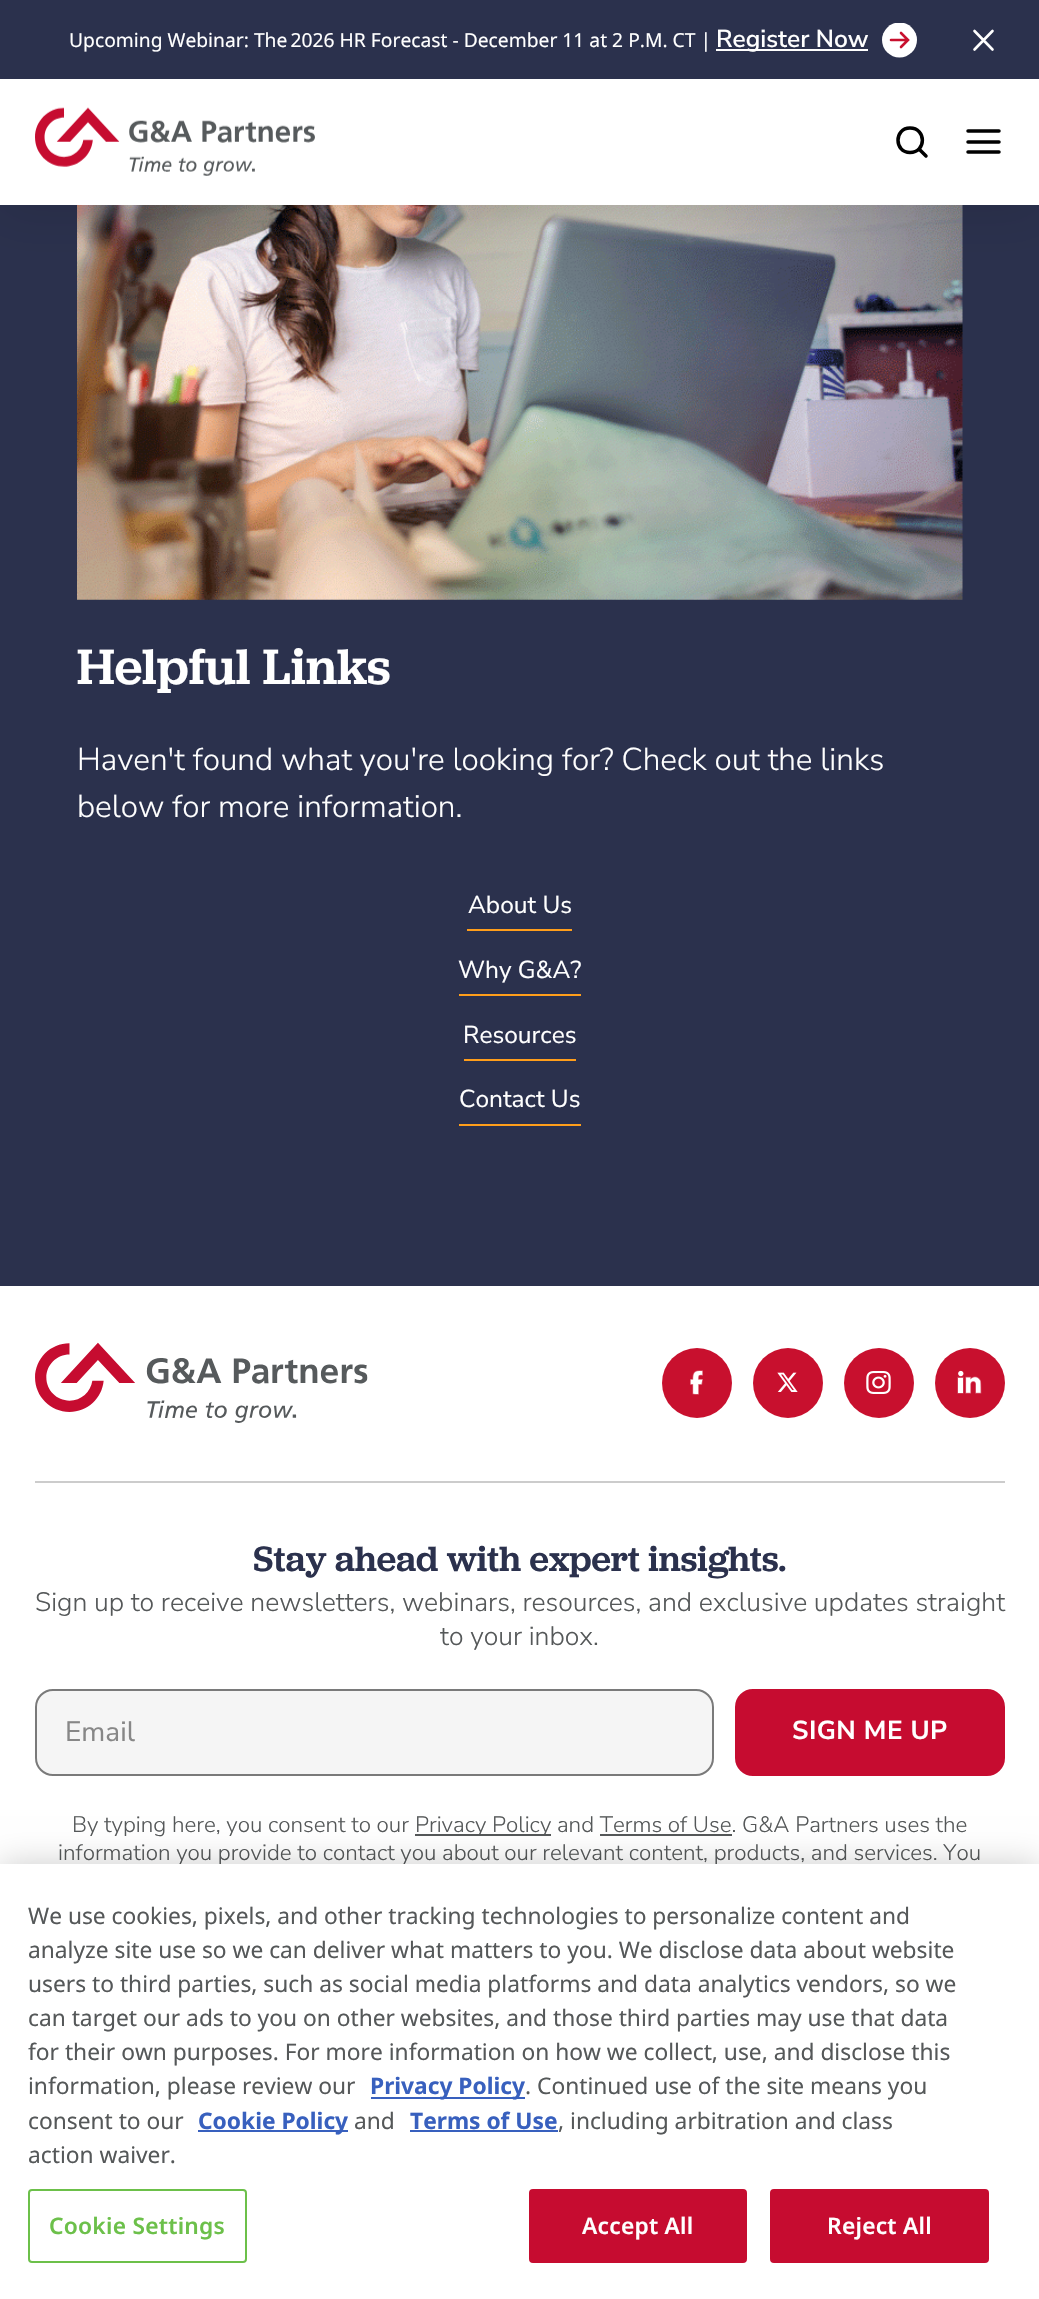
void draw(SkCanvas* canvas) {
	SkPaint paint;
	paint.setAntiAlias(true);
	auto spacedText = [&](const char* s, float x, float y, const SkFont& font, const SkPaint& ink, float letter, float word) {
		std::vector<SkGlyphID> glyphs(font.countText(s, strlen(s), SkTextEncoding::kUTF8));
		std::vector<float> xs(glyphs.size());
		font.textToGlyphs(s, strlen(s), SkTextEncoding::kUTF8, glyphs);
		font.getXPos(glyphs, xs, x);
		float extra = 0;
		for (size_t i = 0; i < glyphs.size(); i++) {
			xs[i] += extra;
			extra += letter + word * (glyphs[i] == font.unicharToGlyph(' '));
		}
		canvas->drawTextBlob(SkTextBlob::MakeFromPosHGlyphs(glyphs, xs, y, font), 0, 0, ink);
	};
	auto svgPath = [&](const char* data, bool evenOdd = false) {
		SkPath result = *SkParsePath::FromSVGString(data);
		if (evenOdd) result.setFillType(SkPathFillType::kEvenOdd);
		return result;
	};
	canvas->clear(0xffffffff);
	paint.setColor(0xff2b314d);
	canvas->drawRect(SkRect::MakeXYWH(0, 205, 1039, 1081), paint);
	canvas->drawImageRect(SkImages::DeferredFromEncodedData(SkData::MakeFromFileName("img2.png")), SkRect::MakeXYWH(77, 205, 886, 395), SkSamplingOptions());
	paint.setColor(0x1a000000);
	paint.setMaskFilter(SkMaskFilter::MakeBlur(kNormal_SkBlurStyle, 22));
	canvas->drawRect(SkRect::MakeXYWH(0, 7, 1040, 205), paint);
	paint.setMaskFilter(nullptr);
	paint.setColor(0xffffffff);
	canvas->drawRect(SkRect::MakeXYWH(0, 79, 1039, 126), paint);
	paint.setColor(0xff2b314d);
	canvas->drawRect(SkRect::MakeXYWH(0, 0, 1039, 79), paint);
	SkFont f1(fontMgr->matchFamilyStyle("Noto Sans", SkFontStyle::Normal()), 19.25);
	f1.setSubpixel(true);
	paint.setColor(0xffffffff);
	canvas->drawString("Upcoming Webinar: The 2026 HR Forecast - December 11 at 2 P.M. CT |", 69, 47, f1, paint);
	canvas->drawRect(SkRect::MakeXYWH(716, 49, 152, 2), paint);
	SkFont f2(fontMgr->matchFamilyStyle("Nunito Sans", SkFontStyle(600, SkFontStyle::kNormal_Width, SkFontStyle::kUpright_Slant)), 24.5);
	f2.setSubpixel(true);
	canvas->drawString("Register Now", 716, 47, f2, paint);
	canvas->save();
	canvas->clipRect(SkRect::MakeXYWH(882, 23, 35, 35));
	canvas->drawCircle(899.5, 40, 17.5, paint);
	canvas->restore();
	paint.setStroke(true);
	paint.setStrokeWidth(2.6);
	paint.setStrokeCap(SkPaint::kRound_Cap);
	paint.setColor(0xffc8102e);
	canvas->drawPath(svgPath("M901 47L908 40L901 33M891 40H905"), paint);
	paint.setStrokeJoin(SkPaint::kRound_Join);
	paint.setColor(0xffffffff);
	canvas->drawPath(svgPath("M992.5 49.5L974.5 31M992.5 31L974.5 49.5"), paint);
	canvas->drawImageRect(SkImages::DeferredFromEncodedData(SkData::MakeFromFileName("img1.png")), SkRect::MakeXYWH(35, 107, 280, 69), SkSamplingOptions());
	paint.setStrokeWidth(3.5);
	paint.setColor(0xff000000);
	canvas->drawPath(svgPath("M910 152.5C926.5 152.5 926.5 128 910 128C894 128 894 152.5 910 152.5ZM926 156L919 149"), paint);
	canvas->drawPath(svgPath("M968 142H999M968 131H999M968 152H999"), paint);
	SkFont f3(fontMgr->matchFamilyStyle("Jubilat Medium", SkFontStyle(500, SkFontStyle::kNormal_Width, SkFontStyle::kUpright_Slant)), 51.75);
	f3.setSubpixel(true);
	paint.setStroke(false);
	paint.setColor(0xffffffff);
	canvas->drawString("Helpful Links", 77, 684, f3, paint);
	SkFont f4(fontMgr->matchFamilyStyle("Nunito Sans", SkFontStyle(300, SkFontStyle::kNormal_Width, SkFontStyle::kUpright_Slant)), 31.5);
	f4.setSubpixel(true);
	canvas->drawString("Haven't found what you're looking for? Check out the links", 77, 770, f4, paint);
	canvas->drawString("below for more information.", 77, 817, f4, paint);
	SkFont f5(fontMgr->matchFamilyStyle("Nunito Sans", SkFontStyle::Normal()), 24.5);
	f5.setSubpixel(true);
	canvas->drawString("About Us", 468, 913, f5, paint);
	paint.setColor(0xffff9e1b);
	canvas->drawRect(SkRect::MakeXYWH(467, 929, 105, 2), paint);
	paint.setColor(0xffffffff);
	canvas->drawString("Why G&A?", 458, 978, f5, paint);
	paint.setColor(0xffff9e1b);
	canvas->drawRect(SkRect::MakeXYWH(459, 994, 122, 2), paint);
	paint.setColor(0xffffffff);
	canvas->drawString("Resources", 463, 1043, f5, paint);
	paint.setColor(0xffff9e1b);
	canvas->drawRect(SkRect::MakeXYWH(464, 1059, 112, 2), paint);
	paint.setColor(0xffffffff);
	canvas->drawString("Contact Us", 459, 1107, f5, paint);
	paint.setColor(0xffff9e1b);
	canvas->drawRect(SkRect::MakeXYWH(459, 1124, 122, 2), paint);
	canvas->drawImageRect(SkImages::DeferredFromEncodedData(SkData::MakeFromFileName("img3.png")), SkRect::MakeXYWH(35, 1342, 333, 81), SkSamplingOptions());
	paint.setColor(0xffc8102e);
	canvas->drawCircle(697, 1383, 35, paint);
	canvas->drawImageRect(SkImages::DeferredFromEncodedData(SkData::MakeFromFileName("img4.png")), SkRect::MakeXYWH(690, 1370, 13, 25), SkSamplingOptions());
	canvas->drawCircle(788, 1383, 35, paint);
	canvas->drawImageRect(SkImages::DeferredFromEncodedData(SkData::MakeFromFileName("img5.png")), SkRect::MakeXYWH(777, 1372, 21, 20), SkSamplingOptions());
	canvas->drawCircle(879, 1383, 35, paint);
	canvas->drawImageRect(SkImages::DeferredFromEncodedData(SkData::MakeFromFileName("img6.png")), SkRect::MakeXYWH(866, 1371, 25, 23), SkSamplingOptions());
	canvas->drawCircle(970, 1383, 35, paint);
	canvas->drawImageRect(SkImages::DeferredFromEncodedData(SkData::MakeFromFileName("img7.png")), SkRect::MakeXYWH(957, 1370, 25, 24), SkSamplingOptions());
	paint.setColor(0xffcccccc);
	canvas->drawRect(SkRect::MakeXYWH(35, 1481, 970, 2), paint);
	SkFont f6(fontMgr->matchFamilyStyle("Jubilat Medium", SkFontStyle(500, SkFontStyle::kNormal_Width, SkFontStyle::kUpright_Slant)), 36.4);
	f6.setSubpixel(true);
	paint.setColor(0xff2b314d);
	canvas->drawString("Stay ahead with expert insights.", 253, 1571, f6, paint);
	SkFont f7(fontMgr->matchFamilyStyle("Nunito Sans", SkFontStyle(300, SkFontStyle::kNormal_Width, SkFontStyle::kUpright_Slant)), 26.6);
	f7.setSubpixel(true);
	paint.setColor(0xff555859);
	canvas->drawString("Sign up to receive newsletters, webinars, resources, and exclusive updates straight", 35, 1611, f7, paint);
	canvas->drawString("to your inbox.", 440, 1645, f7, paint);
	paint.setColor(0xfff5f5f5);
	canvas->drawRoundRect(SkRect::MakeXYWH(35, 1689, 679, 87), 18, 18, paint);
	paint.setStroke(true);
	paint.setStrokeWidth(2);
	paint.setStrokeCap(SkPaint::kButt_Cap);
	paint.setStrokeJoin(SkPaint::kMiter_Join);
	paint.setColor(0x80000000);
	canvas->drawRoundRect(SkRect::MakeXYWH(36, 1690, 677, 85), 17, 17, paint);
	SkFont f8(fontMgr->matchFamilyStyle("Nunito Sans", SkFontStyle::Normal()), 28);
	f8.setSubpixel(true);
	paint.setStroke(false);
	paint.setColor(0xff878787);
	canvas->drawString("Email", 65, 1741, f8, paint);
	paint.setColor(0xffc60c30);
	canvas->drawRoundRect(SkRect::MakeXYWH(736, 1690, 268, 85), 17, 17, paint);
	paint.setStroke(true);
	canvas->drawRoundRect(SkRect::MakeXYWH(736, 1690, 268, 85), 17, 17, paint);
	SkFont f9(fontMgr->matchFamilyStyle("Nunito Sans", SkFontStyle::Bold()), 26);
	f9.setSubpixel(true);
	paint.setStroke(false);
	paint.setColor(0xffffffff);
	spacedText("SIGN ME UP", 792, 1739, f9, paint, 0.5, 0);
	SkFont f10(fontMgr->matchFamilyStyle("Nunito Sans", SkFontStyle(300, SkFontStyle::kNormal_Width, SkFontStyle::kUpright_Slant)), 22.4);
	f10.setSubpixel(true);
	paint.setColor(0xff555859);
	canvas->drawString("By typing here, you consent to our", 72, 1832, f10, paint);
	canvas->drawRect(SkRect::MakeXYWH(415, 1834, 136, 2), paint);
	canvas->drawString("Privacy Policy and Terms of Use. G&A Partners uses the", 415, 1832, f10, paint);
	canvas->drawRect(SkRect::MakeXYWH(600, 1834, 132, 2), paint);
	canvas->drawString("information you provide to contact you about our relevant content, products, and services. You", 58, 1860, f10, paint);
	paint.setColor(0x33000000);
	paint.setMaskFilter(SkMaskFilter::MakeBlur(kNormal_SkBlurStyle, 16));
	canvas->drawRect(SkRect::MakeXYWH(0, 1864, 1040, 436), paint);
	paint.setMaskFilter(nullptr);
	paint.setColor(0xffffffff);
	canvas->drawRect(SkRect::MakeXYWH(0, 1864, 1039, 435), paint);
	SkFont f11(fontMgr->matchFamilyStyle("Noto Sans", SkFontStyle::Normal()), 22.75);
	f11.setSubpixel(true);
	paint.setColor(0xff555859);
	canvas->drawString("We use cookies, pixels, and other tracking technologies to personalize content and", 28, 1924, f11, paint);
	canvas->drawString("analyze site use so we can deliver what matters to you. We disclose data about website", 28, 1958, f11, paint);
	canvas->drawString("users to third parties, such as social media platforms and data analytics vendors, so we", 28, 1992, f11, paint);
	canvas->drawString("can target our ads to you on other websites, and those third parties may use that data", 28, 2026, f11, paint);
	canvas->drawString("for their own purposes. For more information on how we collect, use, and disclose this", 28, 2060, f11, paint);
	canvas->drawString("information, please review our", 28, 2094, f11, paint);
	paint.setColor(0xff3860be);
	canvas->drawRect(SkRect::MakeXYWH(371, 2097, 154, 2), paint);
	SkFont f12(fontMgr->matchFamilyStyle("Noto Sans", SkFontStyle::Bold()), 22.75);
	f12.setSubpixel(true);
	canvas->drawString("Privacy Policy", 370, 2094, f12, paint);
	paint.setColor(0xff555859);
	canvas->drawString(". Continued use of the site means you", 525, 2094, f11, paint);
	canvas->drawString("consent to our", 28, 2129, f11, paint);
	paint.setColor(0xff3860be);
	canvas->drawRect(SkRect::MakeXYWH(198, 2130, 150, 2), paint);
	canvas->drawString("Cookie Policy", 198, 2129, f12, paint);
	paint.setColor(0xff555859);
	canvas->drawString("and", 354, 2129, f11, paint);
	paint.setColor(0xff3860be);
	canvas->drawString("Terms of Use", 410, 2129, f12, paint);
	canvas->drawRect(SkRect::MakeXYWH(410, 2130, 148, 2), paint);
	paint.setColor(0xff555859);
	canvas->drawString(", including arbitration and class", 558, 2129, f11, paint);
	canvas->drawString("action waiver.", 28, 2163, f11, paint);
	paint.setStroke(true);
	paint.setColor(0xff6cc04a);
	canvas->drawRoundRect(SkRect::MakeXYWH(29, 2190, 217, 72), 3, 3, paint);
	SkFont f13(fontMgr->matchFamilyStyle("Noto Sans", SkFontStyle(600, SkFontStyle::kNormal_Width, SkFontStyle::kUpright_Slant)), 22.75);
	f13.setSubpixel(true);
	paint.setStroke(false);
	spacedText("Cookie Settings", 49, 2234, f13, paint, 0.25, 0);
	paint.setColor(0xffc60c30);
	canvas->drawRoundRect(SkRect::MakeXYWH(530, 2190, 216, 72), 3, 3, paint);
	paint.setStroke(true);
	canvas->drawRoundRect(SkRect::MakeXYWH(530, 2190, 216, 72), 3, 3, paint);
	paint.setStroke(false);
	paint.setColor(0xffffffff);
	spacedText("Accept All", 582, 2234, f13, paint, 0.25, 0);
	paint.setColor(0xffc60c30);
	canvas->drawRoundRect(SkRect::MakeXYWH(771, 2190, 217, 72), 3, 3, paint);
	paint.setStroke(true);
	canvas->drawRoundRect(SkRect::MakeXYWH(771, 2190, 217, 72), 3, 3, paint);
	paint.setStroke(false);
	paint.setColor(0xffffffff);
	spacedText("Reject All", 827, 2234, f13, paint, 0.25, 0);
}
